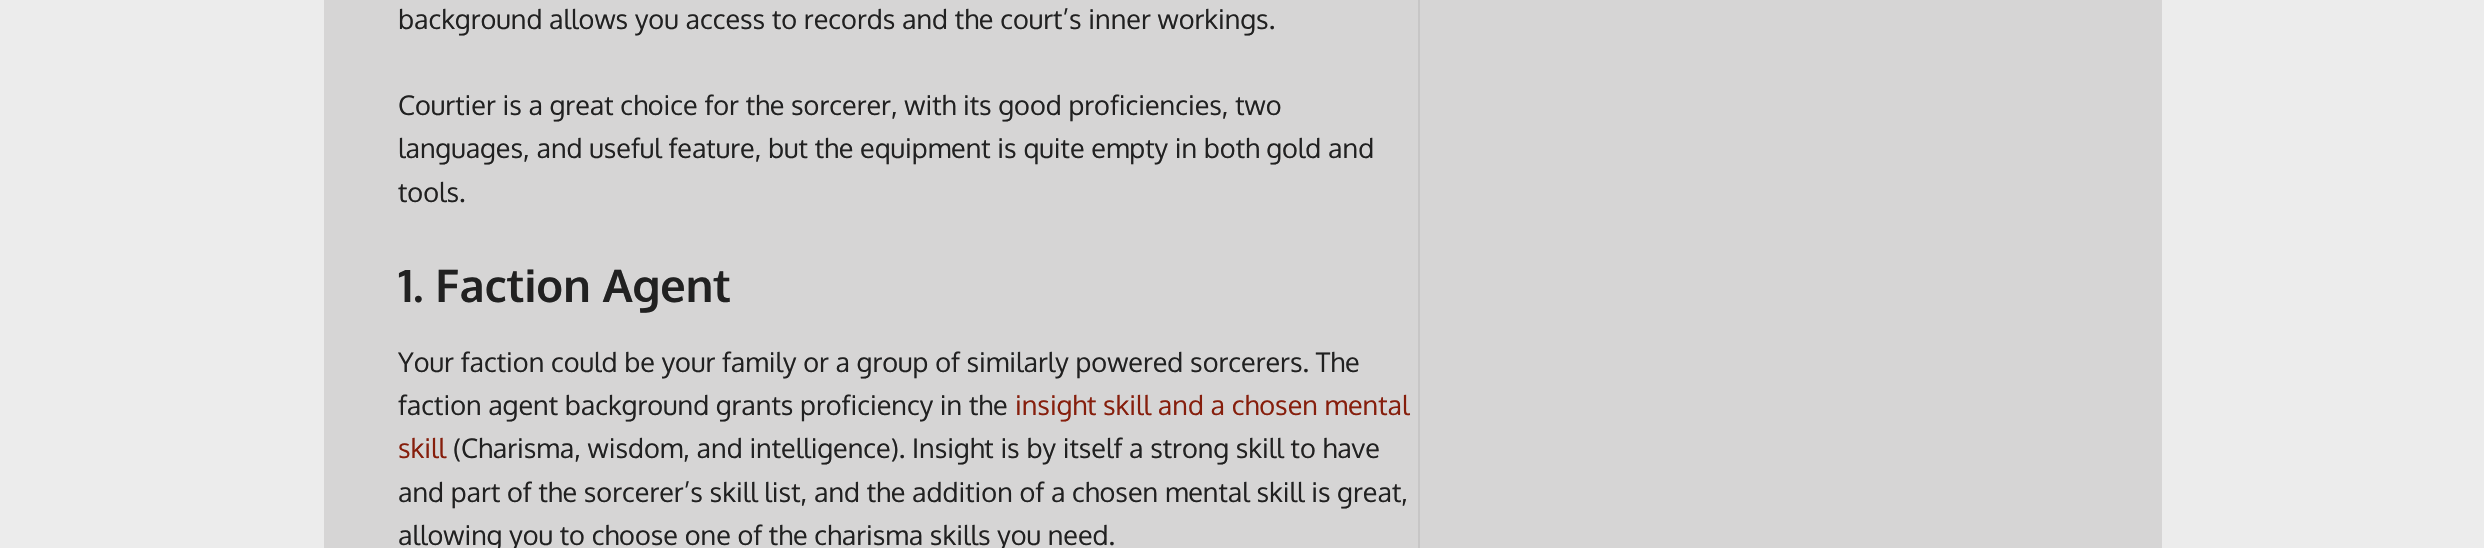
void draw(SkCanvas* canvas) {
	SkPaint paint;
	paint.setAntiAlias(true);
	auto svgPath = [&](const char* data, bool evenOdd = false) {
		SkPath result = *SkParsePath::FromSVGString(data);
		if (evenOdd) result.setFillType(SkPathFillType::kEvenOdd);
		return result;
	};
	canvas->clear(0xffececec);
	paint.setColor(0xffd6d5d5);
	canvas->drawRect(SkRect::MakeXYWH(324, 0, 1838, 548), paint);
	paint.setColor(0xffc7c6c6);
	canvas->drawPath(svgPath("M1420-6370V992L1418 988V-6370Z"), paint);
	SkFont f1(fontMgr->matchFamilyStyle("Oxygen", SkFontStyle::Normal()), 27);
	f1.setSubpixel(true);
	paint.setColor(0xff212121);
	canvas->drawString("background allows you access to records and the court’s inner workings.", 398, 29, f1, paint);
	canvas->drawString("Courtier is a great choice for the sorcerer, with its good proficiencies, two", 398, 115, f1, paint);
	canvas->drawString("languages, and useful feature, but the equipment is quite empty in both gold and", 398, 158, f1, paint);
	canvas->drawString("tools.", 398, 202, f1, paint);
	SkFont f2(fontMgr->matchFamilyStyle("Oxygen", SkFontStyle::Bold()), 45);
	f2.setSubpixel(true);
	canvas->drawString("1. Faction Agent", 398, 302, f2, paint);
	canvas->drawString("Your faction could be your family or a group of similarly powered sorcerers. The", 398, 372, f1, paint);
	canvas->drawString("faction agent background grants proficiency in the", 398, 415, f1, paint);
	paint.setColor(0xff861e0c);
	canvas->drawString("insight skill and a chosen mental", 1015, 415, f1, paint);
	canvas->drawString("skill", 398, 458, f1, paint);
	paint.setColor(0xff212121);
	canvas->drawString("(Charisma, wisdom, and intelligence). Insight is by itself a strong skill to have", 453, 458, f1, paint);
	canvas->drawString("and part of the sorcerer’s skill list, and the addition of a chosen mental skill is great,", 398, 502, f1, paint);
	canvas->drawString("allowing you to choose one of the charisma skills you need.", 398, 545, f1, paint);
}
